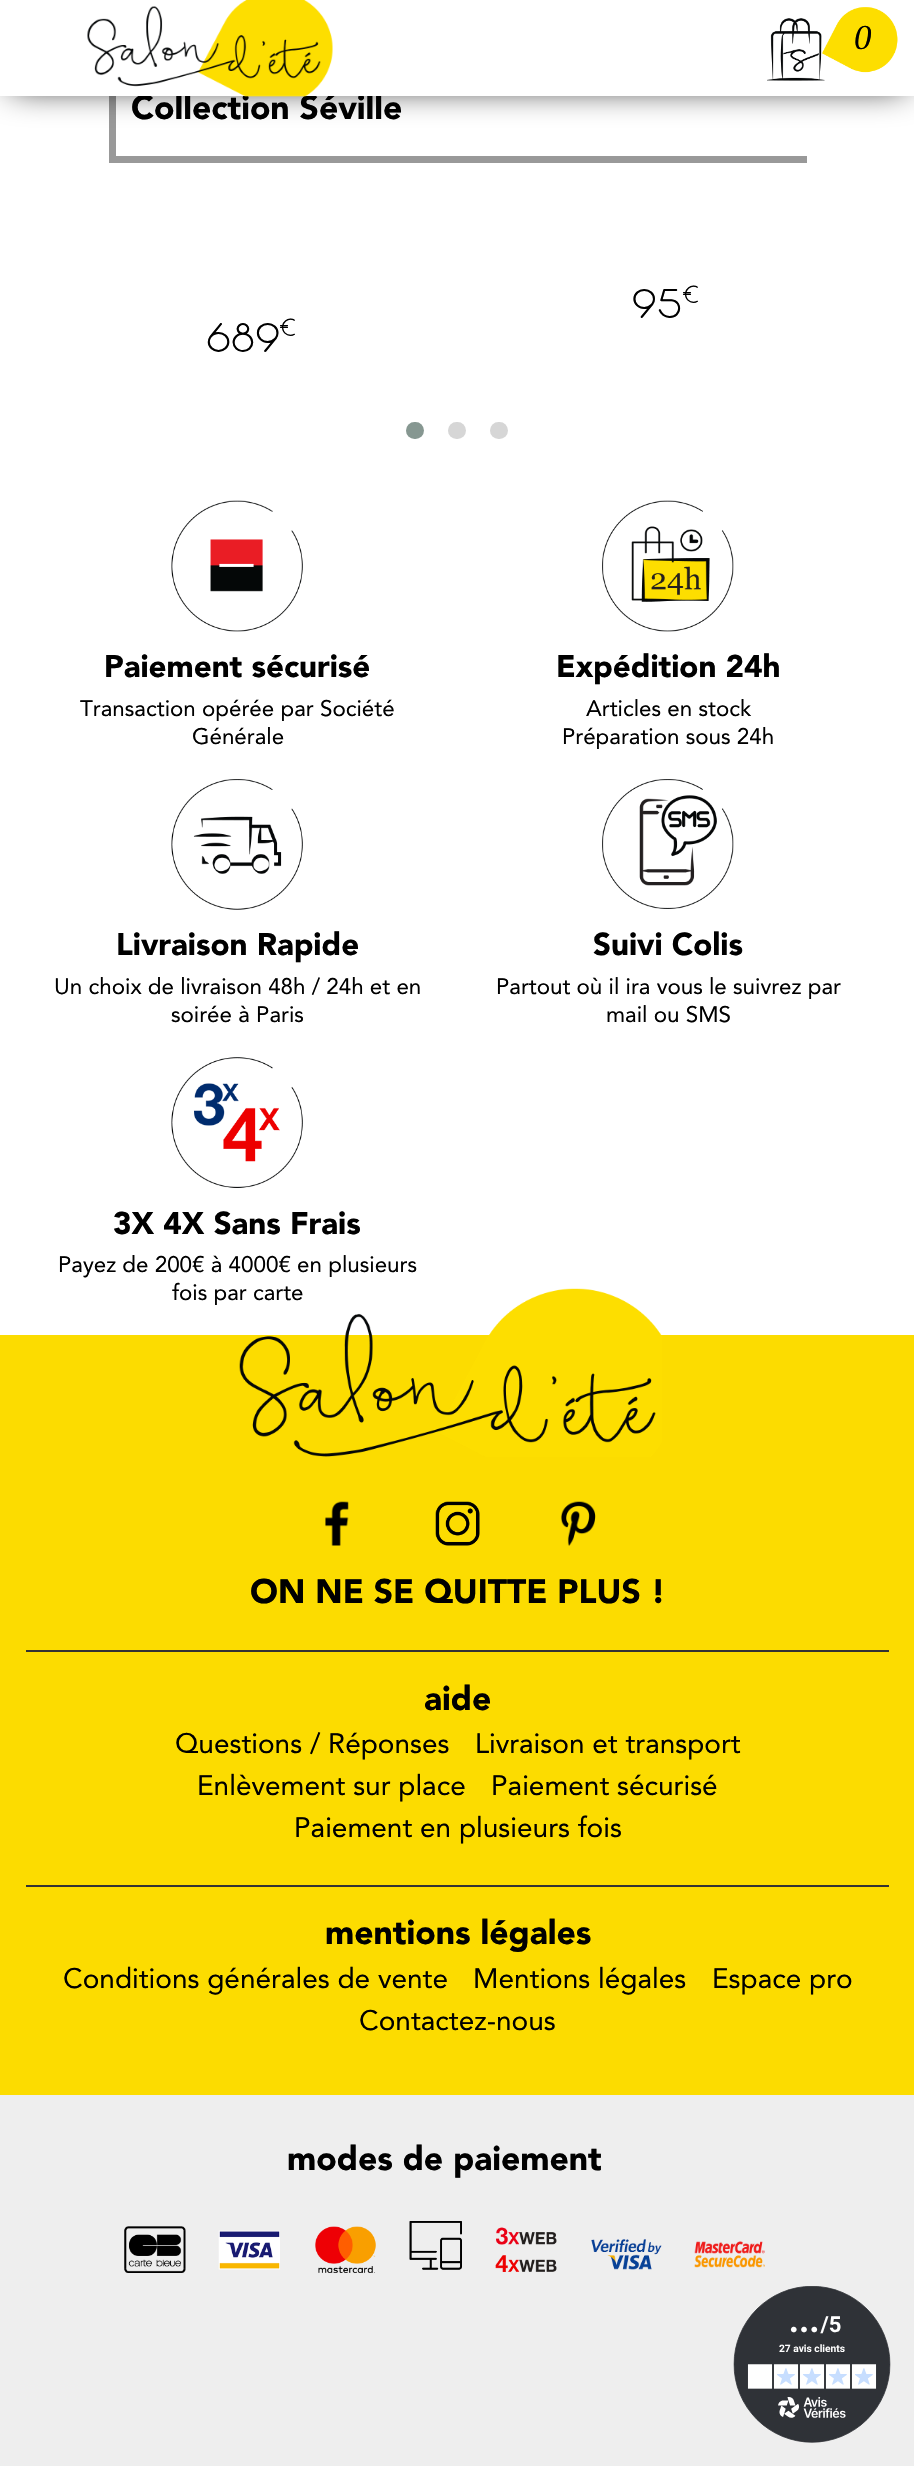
void draw(SkCanvas* canvas) {
	SkPaint paint;
	paint.setAntiAlias(true);
	canvas->clear(0xffffffff);
	paint.setColor(0xff999999);
	canvas->drawRect(SkRect::MakeXYWH(109, 156, 698, 7), paint);
	canvas->drawRect(SkRect::MakeXYWH(109, 96, 7, 67), paint);
	paint.setColor(0xff000000);
	paint.setMaskFilter(SkMaskFilter::MakeBlur(kNormal_SkBlurStyle, 17.5));
	canvas->drawRect(SkRect::MakeXYWH(11, 11, 894, 75), paint);
	paint.setMaskFilter(nullptr);
	SkFont f1(fontMgr->matchFamilyStyle("Avenir", SkFontStyle(900, SkFontStyle::kNormal_Width, SkFontStyle::kUpright_Slant)), 33.6);
	f1.setSubpixel(true);
	canvas->drawString("Collection Séville", 131, 119, f1, paint);
	paint.setColor(0xffffffff);
	canvas->drawRect(SkRect::MakeXYWH(0, 0, 914, 96), paint);
	canvas->drawImageRect(SkImages::DeferredFromEncodedData(SkData::MakeFromFileName("img1.png")), SkRect::MakeXYWH(87, 0, 246, 97), SkSamplingOptions());
	canvas->drawImageRect(SkImages::DeferredFromEncodedData(SkData::MakeFromFileName("img2.png")), SkRect::MakeXYWH(767, 7, 131, 74), SkSamplingOptions());
	SkFont f2(fontMgr->matchFamilyStyle("Liberation Serif", SkFontStyle::Italic()), 35);
	f2.setSubpixel(true);
	paint.setColor(0xff000000);
	canvas->drawString("0", 854, 49, f2, paint);
	SkFont f3(fontMgr->matchFamilyStyle("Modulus", SkFontStyle(500, SkFontStyle::kNormal_Width, SkFontStyle::kUpright_Slant)), 42);
	f3.setSubpixel(true);
	canvas->drawString("95", 632, 318, f3, paint);
	SkFont f4(fontMgr->matchFamilyStyle("Modulus", SkFontStyle(500, SkFontStyle::kNormal_Width, SkFontStyle::kUpright_Slant)), 25);
	f4.setSubpixel(true);
	canvas->drawString("€", 683, 303, f4, paint);
	canvas->drawString("689", 206, 352, f3, paint);
	canvas->drawString("€", 280, 336, f4, paint);
	paint.setColor(0xff869791);
	canvas->drawRoundRect(SkRect::MakeXYWH(406, 422, 18, 17), 8.5, 8.5, paint);
	paint.setColor(0xffd6d6d6);
	canvas->drawRoundRect(SkRect::MakeXYWH(448, 422, 18, 17), 8.5, 8.5, paint);
	canvas->drawRoundRect(SkRect::MakeXYWH(490, 422, 18, 17), 8.5, 8.5, paint);
	canvas->drawImageRect(SkImages::DeferredFromEncodedData(SkData::MakeFromFileName("img3.png")), SkRect::MakeXYWH(171, 500, 132, 132), SkSamplingOptions());
	SkFont f5(fontMgr->matchFamilyStyle("Avenir", SkFontStyle(900, SkFontStyle::kNormal_Width, SkFontStyle::kUpright_Slant)), 31.25);
	f5.setSubpixel(true);
	paint.setColor(0xff000000);
	canvas->drawString("Paiement sécurisé", 104, 677, f5, paint);
	SkFont f6(fontMgr->matchFamilyStyle("Avenir", SkFontStyle::Normal()), 22.4);
	f6.setSubpixel(true);
	canvas->drawString("Transaction opérée par Société", 80, 716, f6, paint);
	canvas->drawString("Générale", 192, 744, f6, paint);
	canvas->drawImageRect(SkImages::DeferredFromEncodedData(SkData::MakeFromFileName("img4.png")), SkRect::MakeXYWH(602, 500, 132, 132), SkSamplingOptions());
	canvas->drawString("Expédition 24h", 556, 677, f5, paint);
	canvas->drawString("Articles en stock", 586, 716, f6, paint);
	canvas->drawString("Préparation sous 24h", 562, 744, f6, paint);
	canvas->drawImageRect(SkImages::DeferredFromEncodedData(SkData::MakeFromFileName("img5.png")), SkRect::MakeXYWH(171, 779, 132, 131), SkSamplingOptions());
	canvas->drawString("Livraison Rapide", 116, 955, f5, paint);
	canvas->drawString("Un choix de livraison 48h / 24h et en", 54, 994, f6, paint);
	canvas->drawString("soirée à Paris", 171, 1022, f6, paint);
	canvas->drawImageRect(SkImages::DeferredFromEncodedData(SkData::MakeFromFileName("img6.png")), SkRect::MakeXYWH(602, 779, 132, 130), SkSamplingOptions());
	canvas->drawString("Suivi Colis", 593, 955, f5, paint);
	canvas->drawString("Partout où il ira vous le suivrez par", 496, 994, f6, paint);
	canvas->drawString("mail ou SMS", 606, 1022, f6, paint);
	canvas->drawImageRect(SkImages::DeferredFromEncodedData(SkData::MakeFromFileName("img7.png")), SkRect::MakeXYWH(171, 1057, 132, 131), SkSamplingOptions());
	canvas->drawString("3X 4X Sans Frais", 113, 1234, f5, paint);
	canvas->drawString("Payez de 200€ à 4000€ en plusieurs", 58, 1272, f6, paint);
	canvas->drawString("fois par carte", 172, 1300, f6, paint);
	paint.setColor(0xfffcdc00);
	canvas->drawRect(SkRect::MakeXYWH(0, 1335, 914, 760), paint);
	paint.setColor(0xff333333);
	canvas->drawRect(SkRect::MakeXYWH(26, 1650, 863, 2), paint);
	canvas->drawImageRect(SkImages::DeferredFromEncodedData(SkData::MakeFromFileName("img8.png")), SkRect::MakeXYWH(239, 1288, 423, 169), SkSamplingOptions());
	canvas->drawImageRect(SkImages::DeferredFromEncodedData(SkData::MakeFromFileName("img9.png")), SkRect::MakeXYWH(325, 1501, 24, 45), SkSamplingOptions());
	canvas->drawImageRect(SkImages::DeferredFromEncodedData(SkData::MakeFromFileName("img10.png")), SkRect::MakeXYWH(435, 1501, 45, 45), SkSamplingOptions());
	canvas->drawImageRect(SkImages::DeferredFromEncodedData(SkData::MakeFromFileName("img11.png")), SkRect::MakeXYWH(560, 1501, 36, 45), SkSamplingOptions());
	paint.setColor(0xff000000);
	canvas->drawString("ON NE SE QUITTE PLUS !", 250, 1603, f1, paint);
	paint.setColor(0xff333333);
	canvas->drawRect(SkRect::MakeXYWH(26, 1885, 863, 2), paint);
	paint.setColor(0xff000000);
	canvas->drawString("aide", 424, 1710, f1, paint);
	SkFont f7(fontMgr->matchFamilyStyle("Avenir", SkFontStyle::Normal()), 28);
	f7.setSubpixel(true);
	canvas->drawString("Questions / Réponses", 175, 1753, f7, paint);
	canvas->drawString("Livraison et transport", 475, 1753, f7, paint);
	canvas->drawString("Enlèvement sur place", 197, 1795, f7, paint);
	canvas->drawString("Paiement sécurisé", 491, 1795, f7, paint);
	canvas->drawString("Paiement en plusieurs fois", 294, 1837, f7, paint);
	canvas->drawString("mentions légales", 325, 1944, f1, paint);
	canvas->drawString("Conditions générales de vente", 63, 1988, f7, paint);
	canvas->drawString("Mentions légales", 473, 1988, f7, paint);
	canvas->drawString("Espace pro", 712, 1988, f7, paint);
	canvas->drawString("Contactez-nous", 359, 2030, f7, paint);
	paint.setColor(0xffeeeeee);
	canvas->drawRect(SkRect::MakeXYWH(0, 2095, 914, 371), paint);
	paint.setColor(0xff000000);
	canvas->drawString("modes de paiement", 287, 2170, f1, paint);
	canvas->drawImageRect(SkImages::DeferredFromEncodedData(SkData::MakeFromFileName("img12.png")), SkRect::MakeXYWH(124, 2226, 62, 47), SkSamplingOptions());
	canvas->drawImageRect(SkImages::DeferredFromEncodedData(SkData::MakeFromFileName("img13.png")), SkRect::MakeXYWH(218, 2230, 62, 40), SkSamplingOptions());
	canvas->drawImageRect(SkImages::DeferredFromEncodedData(SkData::MakeFromFileName("img14.png")), SkRect::MakeXYWH(315, 2226, 61, 47), SkSamplingOptions());
	canvas->drawImageRect(SkImages::DeferredFromEncodedData(SkData::MakeFromFileName("img15.png")), SkRect::MakeXYWH(409, 2221, 53, 49), SkSamplingOptions());
	canvas->drawImageRect(SkImages::DeferredFromEncodedData(SkData::MakeFromFileName("img16.png")), SkRect::MakeXYWH(495, 2227, 62, 45), SkSamplingOptions());
	canvas->drawImageRect(SkImages::DeferredFromEncodedData(SkData::MakeFromFileName("img17.png")), SkRect::MakeXYWH(591, 2239, 71, 31), SkSamplingOptions());
	canvas->drawImageRect(SkImages::DeferredFromEncodedData(SkData::MakeFromFileName("img18.png")), SkRect::MakeXYWH(694, 2241, 71, 27), SkSamplingOptions());
	canvas->drawImageRect(SkImages::DeferredFromEncodedData(SkData::MakeFromFileName("img19.png")), SkRect::MakeXYWH(733, 2286, 158, 157), SkSamplingOptions());
}
